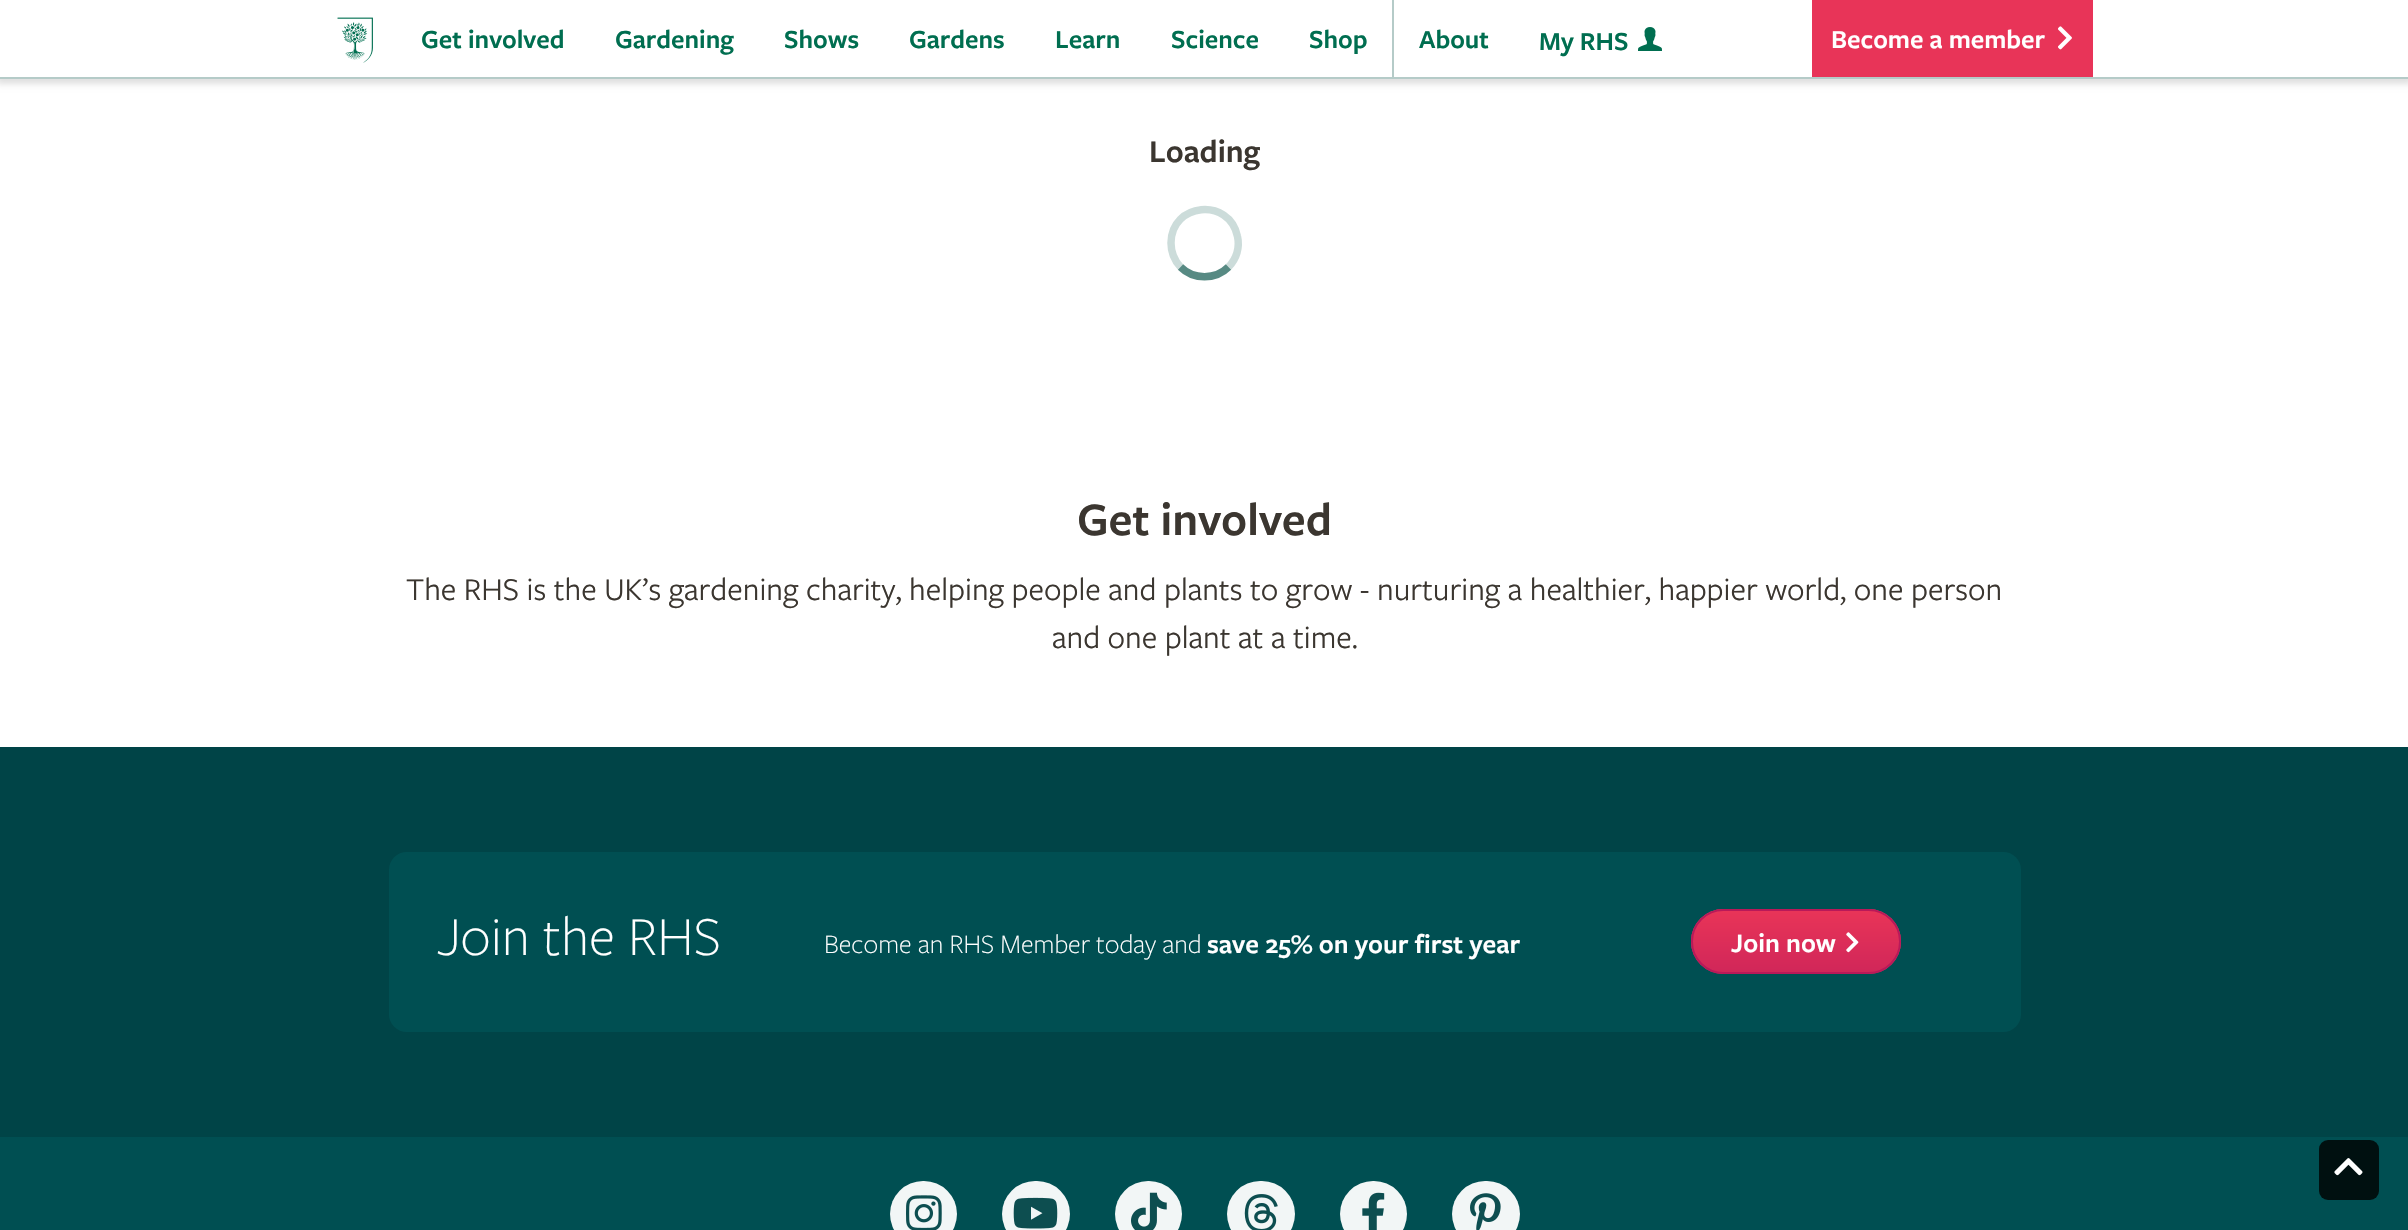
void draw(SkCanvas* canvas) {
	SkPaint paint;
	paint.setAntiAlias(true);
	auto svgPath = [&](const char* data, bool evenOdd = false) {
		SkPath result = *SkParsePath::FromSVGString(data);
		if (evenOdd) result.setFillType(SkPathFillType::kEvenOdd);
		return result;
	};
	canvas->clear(0xffffffff);
	paint.setColor(0x1f000000);
	paint.setMaskFilter(SkMaskFilter::MakeBlur(kNormal_SkBlurStyle, 3));
	canvas->drawRect(SkRect::MakeXYWH(-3, 0, 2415, 84), paint);
	paint.setMaskFilter(nullptr);
	paint.setColor(0xffffffff);
	canvas->drawRect(SkRect::MakeXYWH(0, 0, 2408, 77), paint);
	canvas->drawImageRect(SkImages::DeferredFromEncodedData(SkData::MakeFromFileName("img1.png")), SkRect::MakeXYWH(337, 17, 36, 46), SkSamplingOptions());
	SkFont f1(fontMgr->matchFamilyStyle("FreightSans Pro", SkFontStyle(600, SkFontStyle::kNormal_Width, SkFontStyle::kUpright_Slant)), 27);
	f1.setSubpixel(true);
	paint.setColor(0xff006e50);
	canvas->drawString("Get involved", 421, 48, f1, paint);
	canvas->drawString("Gardening", 615, 48, f1, paint);
	canvas->drawString("Shows", 784, 48, f1, paint);
	canvas->drawString("Gardens", 909, 48, f1, paint);
	canvas->drawString("Learn", 1055, 48, f1, paint);
	canvas->drawString("Science", 1171, 48, f1, paint);
	canvas->drawString("Shop", 1309, 48, f1, paint);
	paint.setColor(0xffb5cbc8);
	canvas->drawRect(SkRect::MakeXYWH(0, 77, 2408, 2), paint);
	canvas->drawRect(SkRect::MakeXYWH(1392, 0, 2, 78), paint);
	paint.setColor(0xff006e50);
	canvas->drawString("About", 1419, 48, f1, paint);
	canvas->drawString("My RHS", 1539, 50, f1, paint);
	canvas->drawImageRect(SkImages::DeferredFromEncodedData(SkData::MakeFromFileName("img2.png")), SkRect::MakeXYWH(1638, 27, 24, 24), SkSamplingOptions());
	paint.setColor(0xffe83458);
	canvas->drawRect(SkRect::MakeXYWH(1812, 0, 281, 77), paint);
	paint.setColor(0xffffffff);
	canvas->drawString("Become a member", 1831, 48, f1, paint);
	canvas->drawImageRect(SkImages::DeferredFromEncodedData(SkData::MakeFromFileName("img3.png")), SkRect::MakeXYWH(2058, 26, 14, 24), SkSamplingOptions());
	SkFont f2(fontMgr->matchFamilyStyle("FreightSans Pro", SkFontStyle(600, SkFontStyle::kNormal_Width, SkFontStyle::kUpright_Slant)), 33);
	f2.setSubpixel(true);
	paint.setColor(0xff3b3630);
	canvas->drawString("Loading", 1149, 162, f2, paint);
	paint.setStroke(true);
	paint.setStrokeWidth(7.5);
	paint.setColor(0xff578a83);
	canvas->drawPath(svgPath("M1228.5 267C1215.5 280 1193.5 280 1180.5 267"), paint);
	paint.setColor(0x4d578a83);
	canvas->drawPath(svgPath("M1180.5 267C1174.5 260.5 1171 252 1171 243C1171 202.5 1229.5 197 1237.5 236.5C1240 247.5 1236.5 259 1228.5 267"), paint);
	SkFont f3(fontMgr->matchFamilyStyle("FreightSans Pro", SkFontStyle(600, SkFontStyle::kNormal_Width, SkFontStyle::kUpright_Slant)), 48);
	f3.setSubpixel(true);
	paint.setStroke(false);
	paint.setColor(0xff3b3630);
	canvas->drawString("Get involved", 1077, 535, f3, paint);
	SkFont f4(fontMgr->matchFamilyStyle("FreightSans Pro", SkFontStyle::Normal()), 33);
	f4.setSubpixel(true);
	canvas->drawString("The RHS is the UK’s gardening charity, helping people and plants to grow - nurturing a healthier, happier world, one person", 406, 600, f4, paint);
	canvas->drawString("and one plant at a time.", 1052, 648, f4, paint);
	paint.setColor(0xff004447);
	canvas->drawRect(SkRect::MakeXYWH(0, 747, 2408, 390), paint);
	paint.setColor(0xff004f52);
	canvas->drawRoundRect(SkRect::MakeXYWH(389, 852, 1632, 180), 18, 18, paint);
	SkFont f5(fontMgr->matchFamilyStyle("FreightSans Pro", SkFontStyle(300, SkFontStyle::kNormal_Width, SkFontStyle::kUpright_Slant)), 57);
	f5.setSubpixel(true);
	paint.setColor(0xffffffff);
	canvas->drawString("Join the RHS", 437, 955, f5, paint);
	SkFont f6(fontMgr->matchFamilyStyle("FreightSans Pro", SkFontStyle(300, SkFontStyle::kNormal_Width, SkFontStyle::kUpright_Slant)), 27.5);
	f6.setSubpixel(true);
	canvas->drawString("Become an RHS Member today and", 824, 953, f6, paint);
	SkFont f7(fontMgr->matchFamilyStyle("FreightSans Pro", SkFontStyle(600, SkFontStyle::kNormal_Width, SkFontStyle::kUpright_Slant)), 27.5);
	f7.setSubpixel(true);
	canvas->drawString("save 25% on your first year", 1207, 953, f7, paint);
	paint.setColor(0xffe83458);
	canvas->drawRoundRect(SkRect::MakeXYWH(1691, 909, 210, 65), 32.5, 32.5, paint);
	canvas->save();
	canvas->clipPath(svgPath("M1723.5 909H1868.5C1886.5 909 1901 923.5 1901 941.5C1901 959.5 1886.5 974 1868.5 974H1723.5C1705.5 974 1691 959.5 1691 941.5C1691 923.5 1705.5 909 1723.5 909Z"), true);
	{
		const SkColor colors[] = {0x80e83458, 0x80b91959};
		const float stops[] = {0, 1};
		const SkPoint ends[] = {{1796, 911}, {1796, 972}};
		paint.setShader(SkGradientShader::MakeLinear(ends, colors, stops, 2, SkTileMode::kClamp));
		paint.setAlpha(255);
	}
	canvas->drawRect(SkRect::MakeXYWH(1691, 911, 210, 61), paint);
	canvas->restore();
	paint.setStroke(true);
	paint.setStrokeWidth(2);
	paint.setShader(nullptr);
	paint.setColor(0xffb91959);
	canvas->drawRoundRect(SkRect::MakeXYWH(1692, 910, 208, 63), 31.5, 31.5, paint);
	paint.setStroke(false);
	paint.setColor(0xffffffff);
	canvas->drawString("Join now", 1731, 952, f7, paint);
	canvas->drawImageRect(SkImages::DeferredFromEncodedData(SkData::MakeFromFileName("img4.png")), SkRect::MakeXYWH(1846, 932, 13, 21), SkSamplingOptions());
	paint.setColor(0xff004f52);
	canvas->drawRect(SkRect::MakeXYWH(0, 1137, 2408, 93), paint);
	paint.setColor(0xfff2f6f6);
	canvas->drawRoundRect(SkRect::MakeXYWH(890, 1181, 67, 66), 33, 33, paint);
	canvas->drawImageRect(SkImages::DeferredFromEncodedData(SkData::MakeFromFileName("img5.png")), SkRect::MakeXYWH(906, 1195, 36, 35), SkSamplingOptions());
	canvas->drawRoundRect(SkRect::MakeXYWH(1002, 1181, 68, 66), 33, 33, paint);
	canvas->drawImageRect(SkImages::DeferredFromEncodedData(SkData::MakeFromFileName("img6.png")), SkRect::MakeXYWH(1013, 1197, 45, 32), SkSamplingOptions());
	canvas->drawRoundRect(SkRect::MakeXYWH(1115, 1181, 67, 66), 33, 33, paint);
	canvas->drawImageRect(SkImages::DeferredFromEncodedData(SkData::MakeFromFileName("img7.png")), SkRect::MakeXYWH(1131, 1192, 36, 38), SkSamplingOptions());
	canvas->drawRoundRect(SkRect::MakeXYWH(1227, 1181, 68, 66), 33, 33, paint);
	canvas->drawImageRect(SkImages::DeferredFromEncodedData(SkData::MakeFromFileName("img8.png")), SkRect::MakeXYWH(1244, 1194, 34, 36), SkSamplingOptions());
	canvas->drawRoundRect(SkRect::MakeXYWH(1340, 1181, 67, 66), 33, 33, paint);
	canvas->drawImageRect(SkImages::DeferredFromEncodedData(SkData::MakeFromFileName("img9.png")), SkRect::MakeXYWH(1362, 1192, 23, 38), SkSamplingOptions());
	canvas->drawRoundRect(SkRect::MakeXYWH(1452, 1181, 68, 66), 33, 33, paint);
	canvas->drawImageRect(SkImages::DeferredFromEncodedData(SkData::MakeFromFileName("img10.png")), SkRect::MakeXYWH(1470, 1193, 31, 37), SkSamplingOptions());
	paint.setColor(0xff001010);
	canvas->drawRoundRect(SkRect::MakeXYWH(2319, 1140, 60, 60), 9, 9, paint);
	canvas->drawImageRect(SkImages::DeferredFromEncodedData(SkData::MakeFromFileName("img11.png")), SkRect::MakeXYWH(2334, 1158, 29, 18), SkSamplingOptions());
}
